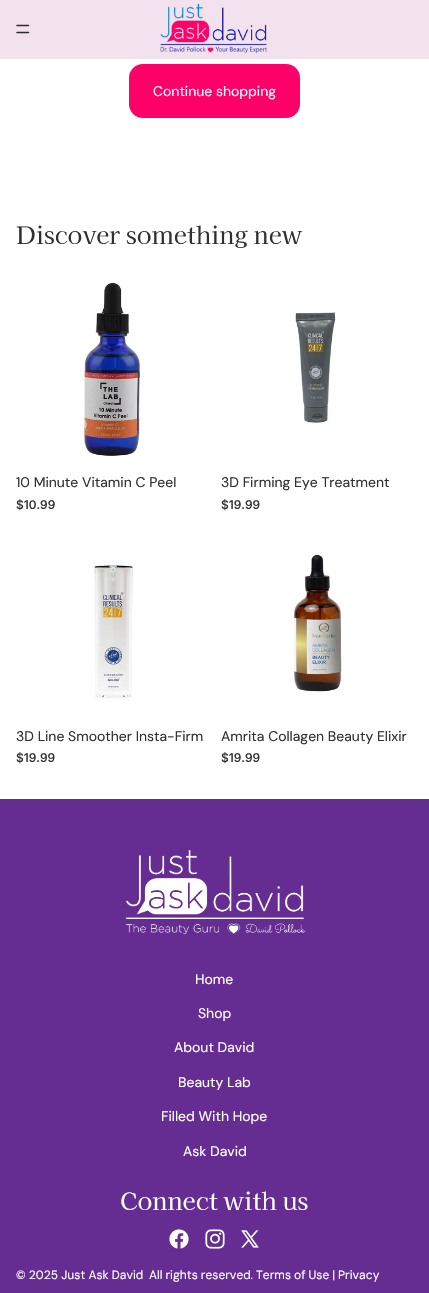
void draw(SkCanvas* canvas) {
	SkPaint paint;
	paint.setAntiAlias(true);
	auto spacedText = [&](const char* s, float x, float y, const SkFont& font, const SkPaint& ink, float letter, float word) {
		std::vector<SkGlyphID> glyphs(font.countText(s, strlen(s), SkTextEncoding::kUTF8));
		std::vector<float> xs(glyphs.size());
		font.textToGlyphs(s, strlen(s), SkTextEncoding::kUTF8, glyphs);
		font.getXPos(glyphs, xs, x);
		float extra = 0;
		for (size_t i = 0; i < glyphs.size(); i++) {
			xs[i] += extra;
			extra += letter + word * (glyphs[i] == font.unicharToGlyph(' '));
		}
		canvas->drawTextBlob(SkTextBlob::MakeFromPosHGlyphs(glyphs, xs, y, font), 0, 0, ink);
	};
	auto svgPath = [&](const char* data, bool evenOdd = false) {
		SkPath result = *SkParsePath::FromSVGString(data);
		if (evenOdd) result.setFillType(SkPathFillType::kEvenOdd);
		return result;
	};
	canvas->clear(0xffffffff);
	paint.setColor(0xfff2e2ee);
	canvas->drawRect(SkRect::MakeXYWH(0, 0, 429, 59), paint);
	paint.setStroke(true);
	paint.setStrokeWidth(1.5);
	paint.setStrokeCap(SkPaint::kRound_Cap);
	paint.setColor(0xff2e2b2d);
	canvas->drawPath(svgPath("M17 25.5H28.5M17 32.5H28.5"), paint);
	canvas->drawImageRect(SkImages::DeferredFromEncodedData(SkData::MakeFromFileName("img1.png")), SkRect::MakeXYWH(160, 4, 107, 50), SkSamplingOptions());
	paint.setStroke(false);
	paint.setColor(0xffff0068);
	canvas->drawRoundRect(SkRect::MakeXYWH(129, 64, 171, 54), 14, 14, paint);
	SkFont f1(fontMgr->matchFamilyStyle("DM Sans", SkFontStyle::Normal()), 14);
	f1.setSubpixel(true);
	paint.setColor(0xffffffff);
	canvas->drawString("Continue shopping", 153, 96, f1, paint);
	SkFont f2(fontMgr->matchFamilyStyle("Kaisei Tokumin", SkFontStyle::Normal()), 24);
	f2.setSubpixel(true);
	paint.setColor(0xff303030);
	canvas->drawString("Discover something new", 16, 244, f2, paint);
	canvas->drawImageRect(SkImages::DeferredFromEncodedData(SkData::MakeFromFileName("img2.png")), SkRect::MakeXYWH(83, 282, 60, 175), SkSamplingOptions());
	canvas->drawString("10 Minute Vitamin C Peel", 16, 487, f1, paint);
	SkFont f3(fontMgr->matchFamilyStyle("Inter", SkFontStyle(500, SkFontStyle::kNormal_Width, SkFontStyle::kUpright_Slant)), 12);
	f3.setSubpixel(true);
	canvas->drawString("$10.99", 16, 509, f3, paint);
	canvas->drawImageRect(SkImages::DeferredFromEncodedData(SkData::MakeFromFileName("img3.png")), SkRect::MakeXYWH(295, 312, 42, 112), SkSamplingOptions());
	canvas->drawString("3D Firming Eye Treatment", 221, 487, f1, paint);
	canvas->drawString("$19.99", 221, 509, f3, paint);
	canvas->drawImageRect(SkImages::DeferredFromEncodedData(SkData::MakeFromFileName("img4.png")), SkRect::MakeXYWH(93, 564, 40, 135), SkSamplingOptions());
	canvas->drawString("3D Line Smoother Insta-Firm", 16, 741, f1, paint);
	canvas->drawString("$19.99", 16, 762, f3, paint);
	canvas->drawImageRect(SkImages::DeferredFromEncodedData(SkData::MakeFromFileName("img5.png")), SkRect::MakeXYWH(294, 554, 48, 139), SkSamplingOptions());
	canvas->drawString("Amrita Collagen Beauty Elixir", 221, 741, f1, paint);
	canvas->drawString("$19.99", 221, 762, f3, paint);
	paint.setColor(0xff652d91);
	canvas->drawRect(SkRect::MakeXYWH(0, 799, 429, 494), paint);
	canvas->drawImageRect(SkImages::DeferredFromEncodedData(SkData::MakeFromFileName("img6.png")), SkRect::MakeXYWH(125, 850, 181, 85), SkSamplingOptions());
	paint.setColor(0xffffffff);
	canvas->drawString("Home", 195, 984, f1, paint);
	canvas->drawString("Shop", 198, 1018, f1, paint);
	canvas->drawString("About David", 174, 1052, f1, paint);
	canvas->drawString("Beauty Lab", 178, 1087, f1, paint);
	canvas->drawString("Filled With Hope", 161, 1121, f1, paint);
	canvas->drawString("Ask David", 183, 1156, f1, paint);
	canvas->drawString("Connect with us", 120, 1210, f2, paint);
	canvas->drawImageRect(SkImages::DeferredFromEncodedData(SkData::MakeFromFileName("img7.png")), SkRect::MakeXYWH(169, 1229, 20, 20), SkSamplingOptions());
	canvas->drawImageRect(SkImages::DeferredFromEncodedData(SkData::MakeFromFileName("img8.png")), SkRect::MakeXYWH(205, 1229, 20, 20), SkSamplingOptions());
	canvas->drawImageRect(SkImages::DeferredFromEncodedData(SkData::MakeFromFileName("img9.png")), SkRect::MakeXYWH(241, 1230, 18, 18), SkSamplingOptions());
	SkFont f4(fontMgr->matchFamilyStyle("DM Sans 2", SkFontStyle::Normal()), 12);
	f4.setSubpixel(true);
	canvas->drawString("© 2025 Just Ask David", 16, 1279, f4, paint);
	spacedText("All rights reserved. Terms of Use | Privacy", 149, 1279, f4, paint, 0, -0.25);
}
